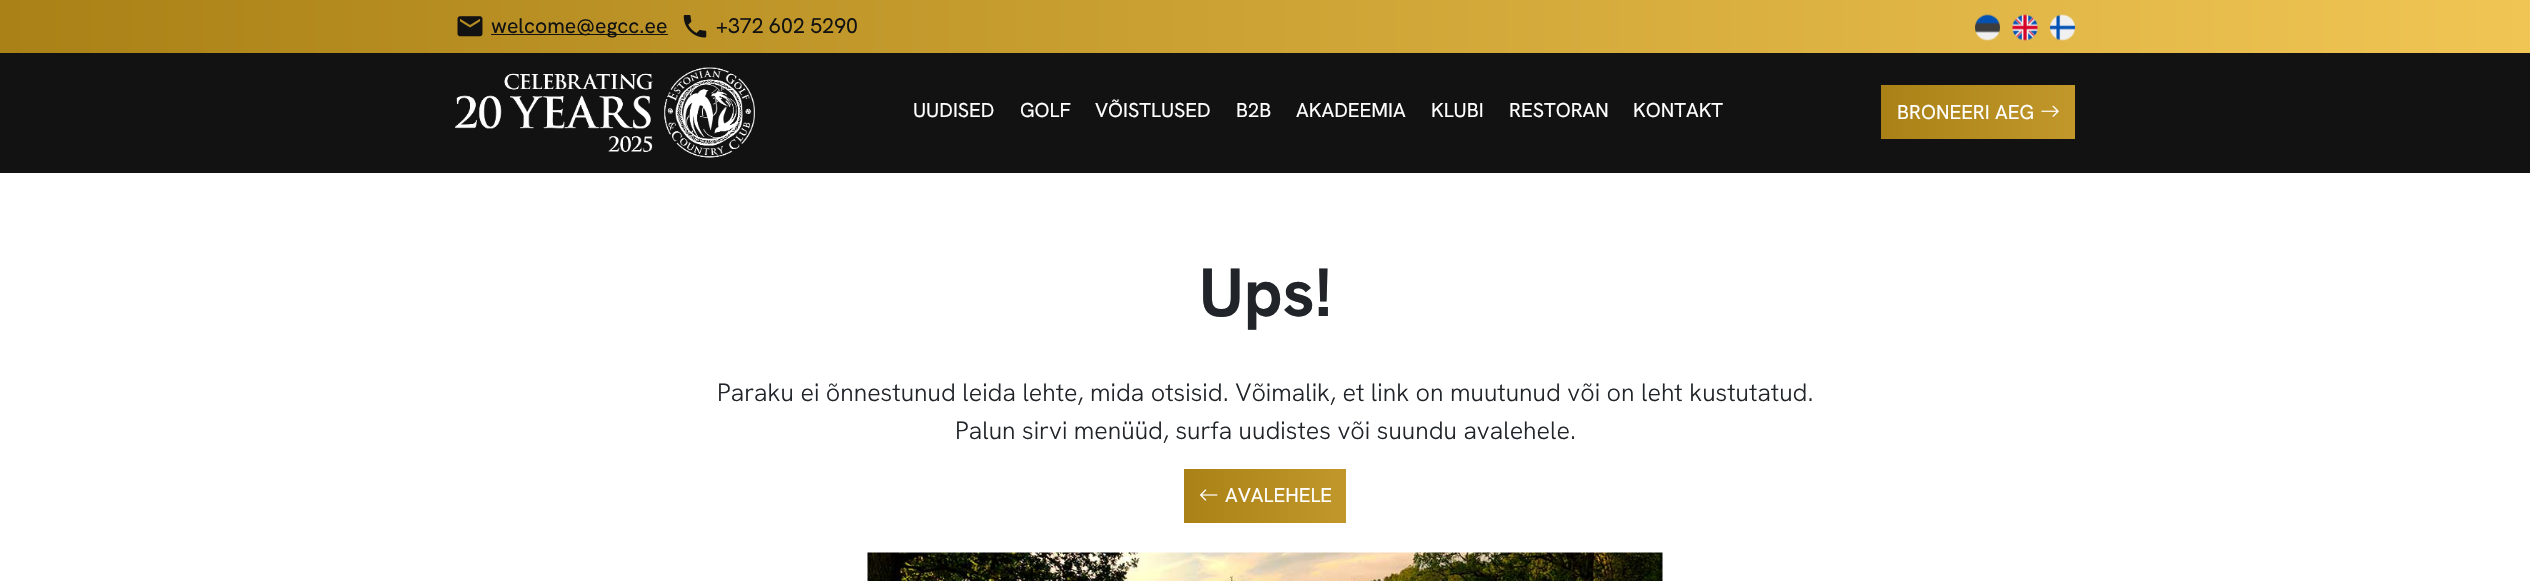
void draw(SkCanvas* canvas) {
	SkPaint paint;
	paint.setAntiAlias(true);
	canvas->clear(0xffffffff);
	{
		const SkColor colors[] = {0xffaa8116, 0xfff0c554};
		const float stops[] = {0, 1};
		const SkPoint ends[] = {{0, 26}, {2530, 26}};
		paint.setShader(SkGradientShader::MakeLinear(ends, colors, stops, 2, SkTileMode::kClamp));
		paint.setAlpha(255);
	}
	canvas->drawRect(SkRect::MakeXYWH(0, 0, 2530, 53), paint);
	canvas->drawImageRect(SkImages::DeferredFromEncodedData(SkData::MakeFromFileName("img1.png")), SkRect::MakeXYWH(457, 16, 26, 21), SkSamplingOptions());
	paint.setShader(nullptr);
	paint.setColor(0xff121212);
	canvas->drawRect(SkRect::MakeXYWH(491, 34, 177, 1), paint);
	SkFont f1(fontMgr->matchFamilyStyle("Hanken Grotesk", SkFontStyle::Normal()), 21.25);
	f1.setSubpixel(true);
	canvas->drawString("welcome@egcc.ee", 491, 33, f1, paint);
	canvas->drawImageRect(SkImages::DeferredFromEncodedData(SkData::MakeFromFileName("img2.png")), SkRect::MakeXYWH(683, 15, 24, 23), SkSamplingOptions());
	canvas->drawString("+372 602 5290", 716, 33, f1, paint);
	canvas->drawImageRect(SkImages::DeferredFromEncodedData(SkData::MakeFromFileName("img3.png")), SkRect::MakeXYWH(1975, 14, 25, 27), SkSamplingOptions());
	canvas->drawImageRect(SkImages::DeferredFromEncodedData(SkData::MakeFromFileName("img4.png")), SkRect::MakeXYWH(2012, 14, 26, 27), SkSamplingOptions());
	canvas->drawImageRect(SkImages::DeferredFromEncodedData(SkData::MakeFromFileName("img5.png")), SkRect::MakeXYWH(2050, 14, 25, 27), SkSamplingOptions());
	canvas->drawRect(SkRect::MakeXYWH(0, 53, 2530, 120), paint);
	canvas->drawImageRect(SkImages::DeferredFromEncodedData(SkData::MakeFromFileName("img6.png")), SkRect::MakeXYWH(455, 67, 300, 91), SkSamplingOptions());
	SkFont f2(fontMgr->matchFamilyStyle("Hanken Grotesk", SkFontStyle::Normal()), 20);
	f2.setSubpixel(true);
	paint.setColor(0xffffffff);
	canvas->drawString("UUDISED", 913, 117, f2, paint);
	canvas->drawString("GOLF", 1020, 117, f2, paint);
	canvas->drawString("VÕISTLUSED", 1095, 117, f2, paint);
	canvas->drawString("B2B", 1236, 117, f2, paint);
	canvas->drawString("AKADEEMIA", 1296, 117, f2, paint);
	canvas->drawString("KLUBI", 1431, 117, f2, paint);
	canvas->drawString("RESTORAN", 1509, 117, f2, paint);
	canvas->drawString("KONTAKT", 1633, 117, f2, paint);
	{
		const SkColor colors[] = {0xffaa8116, 0xfff0c554};
		const float stops[] = {0, 1};
		const SkPoint ends[] = {{1881, 112}, {2463, 112}};
		paint.setShader(SkGradientShader::MakeLinear(ends, colors, stops, 2, SkTileMode::kClamp));
		paint.setAlpha(255);
	}
	canvas->drawRect(SkRect::MakeXYWH(1881, 85, 194, 54), paint);
	paint.setShader(nullptr);
	paint.setColor(0xffffffff);
	canvas->drawString("BRONEERI AEG", 1897, 119, f2, paint);
	canvas->drawImageRect(SkImages::DeferredFromEncodedData(SkData::MakeFromFileName("img7.png")), SkRect::MakeXYWH(2041, 105, 18, 12), SkSamplingOptions());
	SkFont f3(fontMgr->matchFamilyStyle("Hanken Grotesk", SkFontStyle::Bold()), 68);
	f3.setSubpixel(true);
	paint.setColor(0xff212529);
	canvas->drawString("Ups!", 1199, 316, f3, paint);
	SkFont f4(fontMgr->matchFamilyStyle("Hanken Grotesk", SkFontStyle(300, SkFontStyle::kNormal_Width, SkFontStyle::kUpright_Slant)), 25);
	f4.setSubpixel(true);
	canvas->drawString("Paraku ei õnnestunud leida lehte, mida otsisid. Võimalik, et link on muutunud või on leht kustutatud.", 717, 401, f4, paint);
	canvas->drawString("Palun sirvi menüüd, surfa uudistes või suundu avalehele.", 955, 439, f4, paint);
	{
		const SkColor colors[] = {0xffaa8116, 0xfff0c554};
		const float stops[] = {0, 1};
		const SkPoint ends[] = {{1184, 496}, {1671, 496}};
		paint.setShader(SkGradientShader::MakeLinear(ends, colors, stops, 2, SkTileMode::kClamp));
		paint.setAlpha(255);
	}
	canvas->drawRect(SkRect::MakeXYWH(1184, 469, 162, 54), paint);
	canvas->drawImageRect(SkImages::DeferredFromEncodedData(SkData::MakeFromFileName("img8.png")), SkRect::MakeXYWH(1200, 489, 18, 12), SkSamplingOptions());
	paint.setShader(nullptr);
	paint.setColor(0xffffffff);
	canvas->drawString("AVALEHELE", 1225, 502, f2, paint);
	canvas->drawImageRect(SkImages::DeferredFromEncodedData(SkData::MakeFromFileName("img9.png")), SkRect::MakeXYWH(867, 552, 796, 29), SkSamplingOptions());
}
